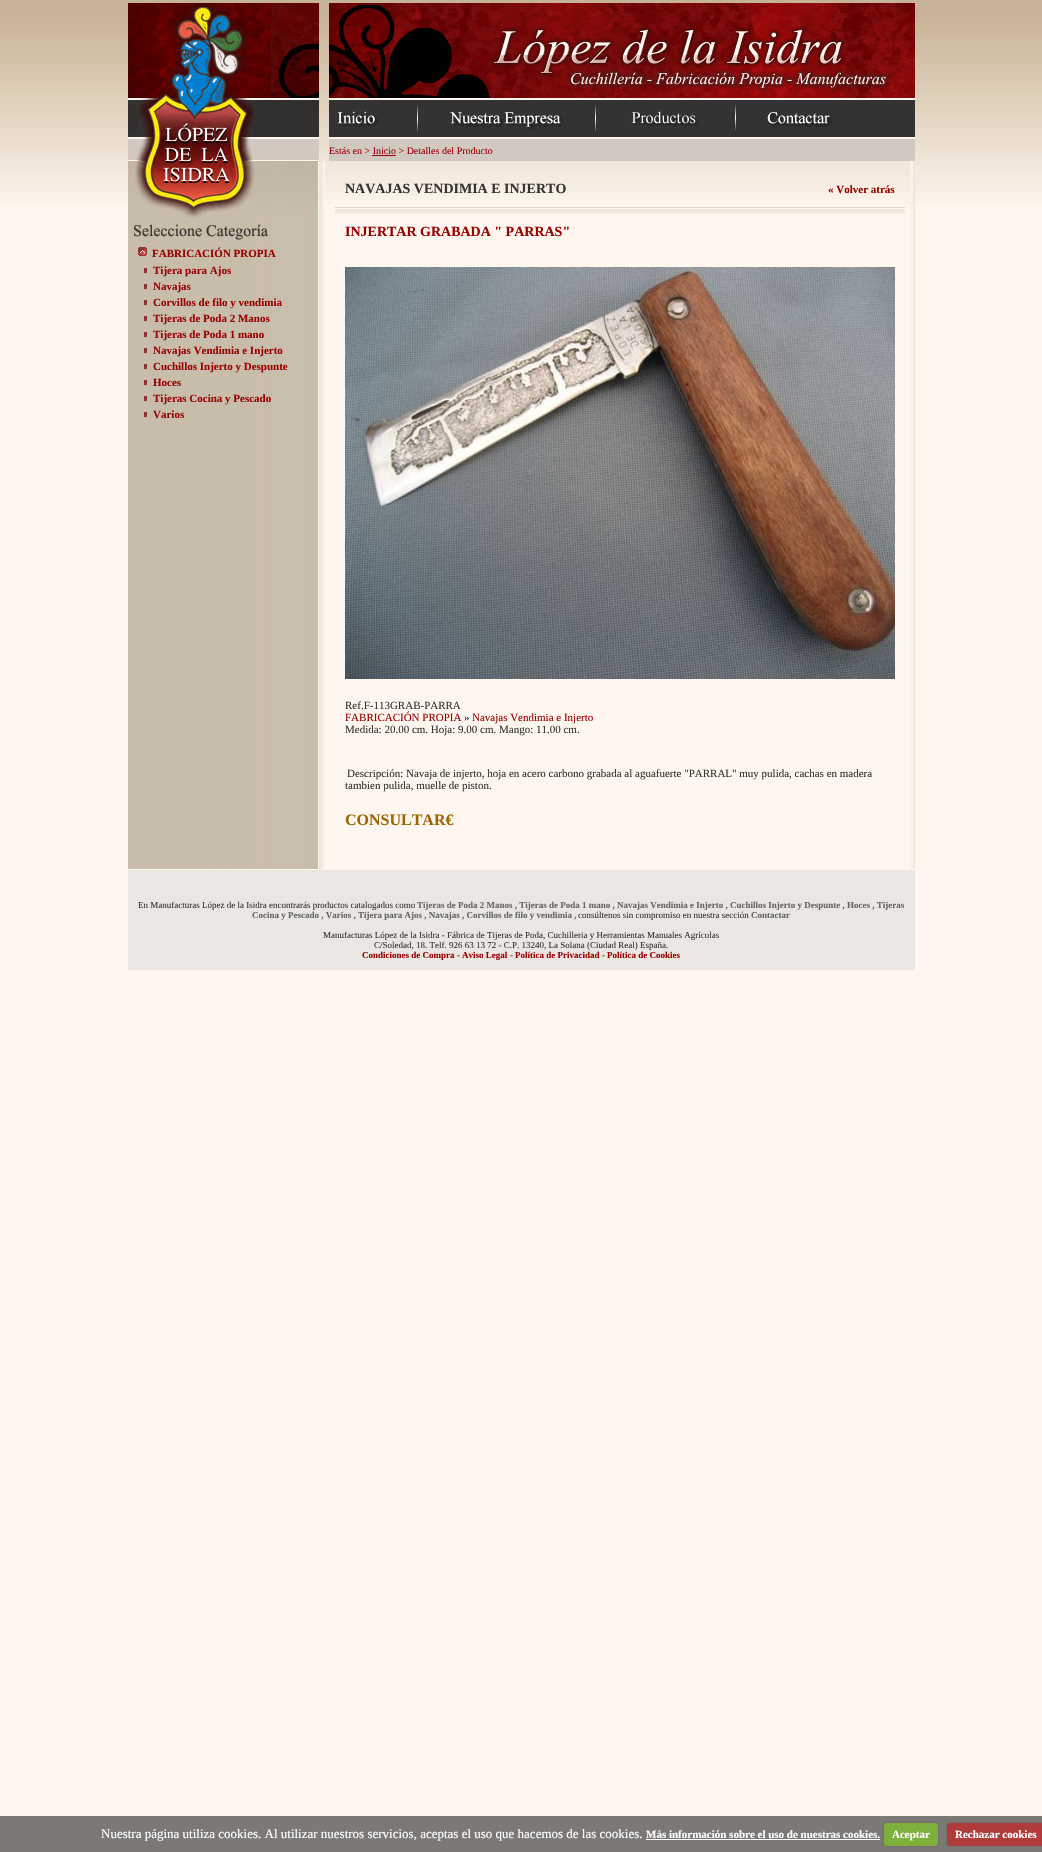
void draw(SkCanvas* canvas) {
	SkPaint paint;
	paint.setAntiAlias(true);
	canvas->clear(0xfffff7ef);
	canvas->drawImageRect(SkImages::DeferredFromEncodedData(SkData::MakeFromFileName("img1.png")), SkRect::MakeXYWH(0, 0, 1042, 204), SkSamplingOptions());
	canvas->drawImageRect(SkImages::DeferredFromEncodedData(SkData::MakeFromFileName("img2.png")), SkRect::MakeXYWH(128, 3, 191, 158), SkSamplingOptions());
	canvas->drawImageRect(SkImages::DeferredFromEncodedData(SkData::MakeFromFileName("img3.png")), SkRect::MakeXYWH(329, 3, 586, 136), SkSamplingOptions());
	paint.setColor(0xffd1c9c1);
	canvas->drawRect(SkRect::MakeXYWH(329, 139, 586, 22), paint);
	SkFont f1(fontMgr->matchFamilyStyle("Liberation Serif", SkFontStyle::Normal()), 10);
	f1.setSubpixel(true);
	paint.setColor(0xff990000);
	canvas->drawString("Estás en > Inicio > Detalles del Producto", 329, 154, f1, paint);
	canvas->drawRect(SkRect::MakeXYWH(372, 155, 24, 1), paint);
	canvas->drawImageRect(SkImages::DeferredFromEncodedData(SkData::MakeFromFileName("img4.png")), SkRect::MakeXYWH(128, 161, 197, 708), SkSamplingOptions());
	canvas->drawImageRect(SkImages::DeferredFromEncodedData(SkData::MakeFromFileName("img5.png")), SkRect::MakeXYWH(128, 161, 190, 57), SkSamplingOptions());
	canvas->drawImageRect(SkImages::DeferredFromEncodedData(SkData::MakeFromFileName("img6.png")), SkRect::MakeXYWH(134, 224, 134, 16), SkSamplingOptions());
	canvas->drawImageRect(SkImages::DeferredFromEncodedData(SkData::MakeFromFileName("img7.png")), SkRect::MakeXYWH(138, 247, 9, 9), SkSamplingOptions());
	SkFont f2(fontMgr->matchFamilyStyle("Liberation Serif", SkFontStyle::Bold()), 11);
	f2.setSubpixel(true);
	canvas->drawString("FABRICACIÓN PROPIA", 152, 257, f2, paint);
	paint.setColor(0xff943131);
	canvas->drawRect(SkRect::MakeXYWH(144, 268, 3, 5), paint);
	paint.setColor(0xff990000);
	canvas->drawString("Tijera para Ajos", 153, 274, f2, paint);
	paint.setColor(0xff943131);
	canvas->drawRect(SkRect::MakeXYWH(144, 284, 3, 5), paint);
	paint.setColor(0xff990000);
	canvas->drawString("Navajas", 153, 290, f2, paint);
	paint.setColor(0xff943131);
	canvas->drawRect(SkRect::MakeXYWH(144, 300, 3, 5), paint);
	paint.setColor(0xff990000);
	canvas->drawString("Corvillos de filo y vendimia", 153, 306, f2, paint);
	paint.setColor(0xff943131);
	canvas->drawRect(SkRect::MakeXYWH(144, 316, 3, 5), paint);
	paint.setColor(0xff990000);
	canvas->drawString("Tijeras de Poda 2 Manos", 153, 322, f2, paint);
	paint.setColor(0xff943131);
	canvas->drawRect(SkRect::MakeXYWH(144, 332, 3, 5), paint);
	paint.setColor(0xff990000);
	canvas->drawString("Tijeras de Poda 1 mano", 153, 338, f2, paint);
	paint.setColor(0xff943131);
	canvas->drawRect(SkRect::MakeXYWH(144, 348, 3, 5), paint);
	paint.setColor(0xff990000);
	canvas->drawString("Navajas Vendimia e Injerto", 153, 354, f2, paint);
	paint.setColor(0xff943131);
	canvas->drawRect(SkRect::MakeXYWH(144, 364, 3, 5), paint);
	paint.setColor(0xff990000);
	canvas->drawString("Cuchillos Injerto y Despunte", 153, 370, f2, paint);
	paint.setColor(0xff943131);
	canvas->drawRect(SkRect::MakeXYWH(144, 380, 3, 5), paint);
	paint.setColor(0xff990000);
	canvas->drawString("Hoces", 153, 386, f2, paint);
	paint.setColor(0xff943131);
	canvas->drawRect(SkRect::MakeXYWH(144, 396, 3, 5), paint);
	paint.setColor(0xff990000);
	canvas->drawString("Tijeras Cocina y Pescado", 153, 402, f2, paint);
	paint.setColor(0xff943131);
	canvas->drawRect(SkRect::MakeXYWH(144, 412, 3, 5), paint);
	paint.setColor(0xff990000);
	canvas->drawString("Varios", 153, 418, f2, paint);
	canvas->drawImageRect(SkImages::DeferredFromEncodedData(SkData::MakeFromFileName("img8.png")), SkRect::MakeXYWH(910, 161, 5, 708), SkSamplingOptions());
	SkFont f3(fontMgr->matchFamilyStyle("Liberation Serif", SkFontStyle::Bold()), 14);
	f3.setSubpixel(true);
	paint.setColor(0xff353535);
	canvas->drawString("NAVAJAS VENDIMIA E INJERTO", 345, 193, f3, paint);
	paint.setColor(0xff990000);
	canvas->drawString("« Volver atrás", 828, 193, f2, paint);
	canvas->drawImageRect(SkImages::DeferredFromEncodedData(SkData::MakeFromFileName("img9.png")), SkRect::MakeXYWH(335, 207, 570, 7), SkSamplingOptions());
	canvas->drawString("INJERTAR GRABADA \" PARRAS\"", 345, 236, f3, paint);
	canvas->drawImageRect(SkImages::DeferredFromEncodedData(SkData::MakeFromFileName("img10.png")), SkRect::MakeXYWH(345, 267, 550, 412), SkSamplingOptions());
	SkFont f4(fontMgr->matchFamilyStyle("Liberation Serif", SkFontStyle::Normal()), 11);
	f4.setSubpixel(true);
	paint.setColor(0xff353535);
	canvas->drawString("Ref.F-113GRAB-PARRA", 345, 709, f4, paint);
	paint.setColor(0xff990000);
	canvas->drawString("FABRICACIÓN PROPIA", 345, 721, f4, paint);
	paint.setColor(0xff353535);
	canvas->drawString("»", 464, 721, f4, paint);
	paint.setColor(0xff990000);
	canvas->drawString("Navajas Vendimia e Injerto", 472, 721, f4, paint);
	paint.setColor(0xff353535);
	canvas->drawString("Medida: 20.00 cm. Hoja: 9.00 cm. Mango: 11.00 cm.", 345, 733, f4, paint);
	canvas->drawString("Descripción: Navaja de injerto, hoja en acero carbono grabada al aguafuerte \"PARRAL\" muy pulida, cachas en madera", 347, 777, f4, paint);
	canvas->drawString("tambien pulida, muelle de piston.", 345, 789, f4, paint);
	SkFont f5(fontMgr->matchFamilyStyle("Liberation Serif", SkFontStyle::Bold()), 16);
	f5.setSubpixel(true);
	paint.setColor(0xff996600);
	canvas->drawString("CONSULTAR€", 345, 825, f5, paint);
	paint.setColor(0xffeae6e1);
	canvas->drawRect(SkRect::MakeXYWH(128, 870, 787, 100), paint);
	SkFont f6(fontMgr->matchFamilyStyle("Liberation Serif", SkFontStyle::Normal()), 9);
	f6.setSubpixel(true);
	paint.setColor(0xff353535);
	canvas->drawString("En Manufacturas López de la Isidra encontrarás productos catalogados como", 138, 908, f6, paint);
	SkFont f7(fontMgr->matchFamilyStyle("Liberation Serif", SkFontStyle::Bold()), 9);
	f7.setSubpixel(true);
	paint.setColor(0xff666666);
	canvas->drawString("Tijeras de Poda 2 Manos , Tijeras de Poda 1 mano , Navajas Vendimia e Injerto , Cuchillos Injerto y Despunte , Hoces , Tijeras", 417, 908, f7, paint);
	canvas->drawString("Cocina y Pescado , Varios , Tijera para Ajos , Navajas , Corvillos de filo y vendimia ,", 252, 918, f7, paint);
	paint.setColor(0xff353535);
	canvas->drawString("consúltenos sin compromiso en nuestra sección", 578, 918, f6, paint);
	paint.setColor(0xff666666);
	canvas->drawString("Contactar", 751, 918, f7, paint);
	paint.setColor(0xff353535);
	canvas->drawString("Manufacturas López de la Isidra - Fábrica de Tijeras de Poda, Cuchilleria y Herramientas Manuales Agrícolas", 323, 938, f6, paint);
	canvas->drawString("C/Soledad, 18. Telf. 926 63 13 72 - C.P. 13240, La Solana (Ciudad Real) España.", 374, 948, f6, paint);
	paint.setColor(0xff990000);
	canvas->drawString("Condiciones de Compra", 362, 958, f7, paint);
	paint.setColor(0xff353535);
	canvas->drawString("-", 457, 958, f6, paint);
	paint.setColor(0xff990000);
	canvas->drawString("Aviso Legal", 462, 958, f7, paint);
	paint.setColor(0xff353535);
	canvas->drawString("-", 510, 958, f6, paint);
	paint.setColor(0xff990000);
	canvas->drawString("Política de Privacidad", 515, 958, f7, paint);
	paint.setColor(0xff353535);
	canvas->drawString("-", 602, 958, f6, paint);
	paint.setColor(0xff990000);
	canvas->drawString("Política de Cookies", 607, 958, f7, paint);
	paint.setColor(0xff7c7875);
	canvas->drawRect(SkRect::MakeXYWH(0, 1816, 1042, 36), paint);
	SkFont f8(fontMgr->matchFamilyStyle("Liberation Serif", SkFontStyle::Normal()), 13);
	f8.setSubpixel(true);
	paint.setColor(0xffffffff);
	canvas->drawString("Nuestra página utiliza cookies. Al utilizar nuestros servicios, aceptas el uso que hacemos de las cookies.", 101, 1838, f8, paint);
	canvas->drawString("Más información sobre el uso de nuestras cookies.", 646, 1838, f2, paint);
	canvas->drawRect(SkRect::MakeXYWH(646, 1839, 234, 1), paint);
	paint.setColor(0x40000000);
	paint.setMaskFilter(SkMaskFilter::MakeBlur(kNormal_SkBlurStyle, 1));
	canvas->drawRoundRect(SkRect::MakeXYWH(884, 1823, 54, 23), 3, 3, paint);
	paint.setMaskFilter(nullptr);
	paint.setColor(0xff7daf3b);
	canvas->drawRoundRect(SkRect::MakeXYWH(884, 1823, 54, 23), 3, 3, paint);
	paint.setColor(0xffffffff);
	canvas->drawString("Aceptar", 892, 1838, f2, paint);
	paint.setColor(0x40000000);
	paint.setMaskFilter(SkMaskFilter::MakeBlur(kNormal_SkBlurStyle, 1));
	canvas->drawRoundRect(SkRect::MakeXYWH(947, 1823, 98, 23), 3, 3, paint);
	paint.setMaskFilter(nullptr);
	paint.setColor(0xffaf3b3b);
	canvas->drawRoundRect(SkRect::MakeXYWH(947, 1823, 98, 23), 3, 3, paint);
	paint.setColor(0xffffffff);
	canvas->drawString("Rechazar cookies", 955, 1838, f2, paint);
}
